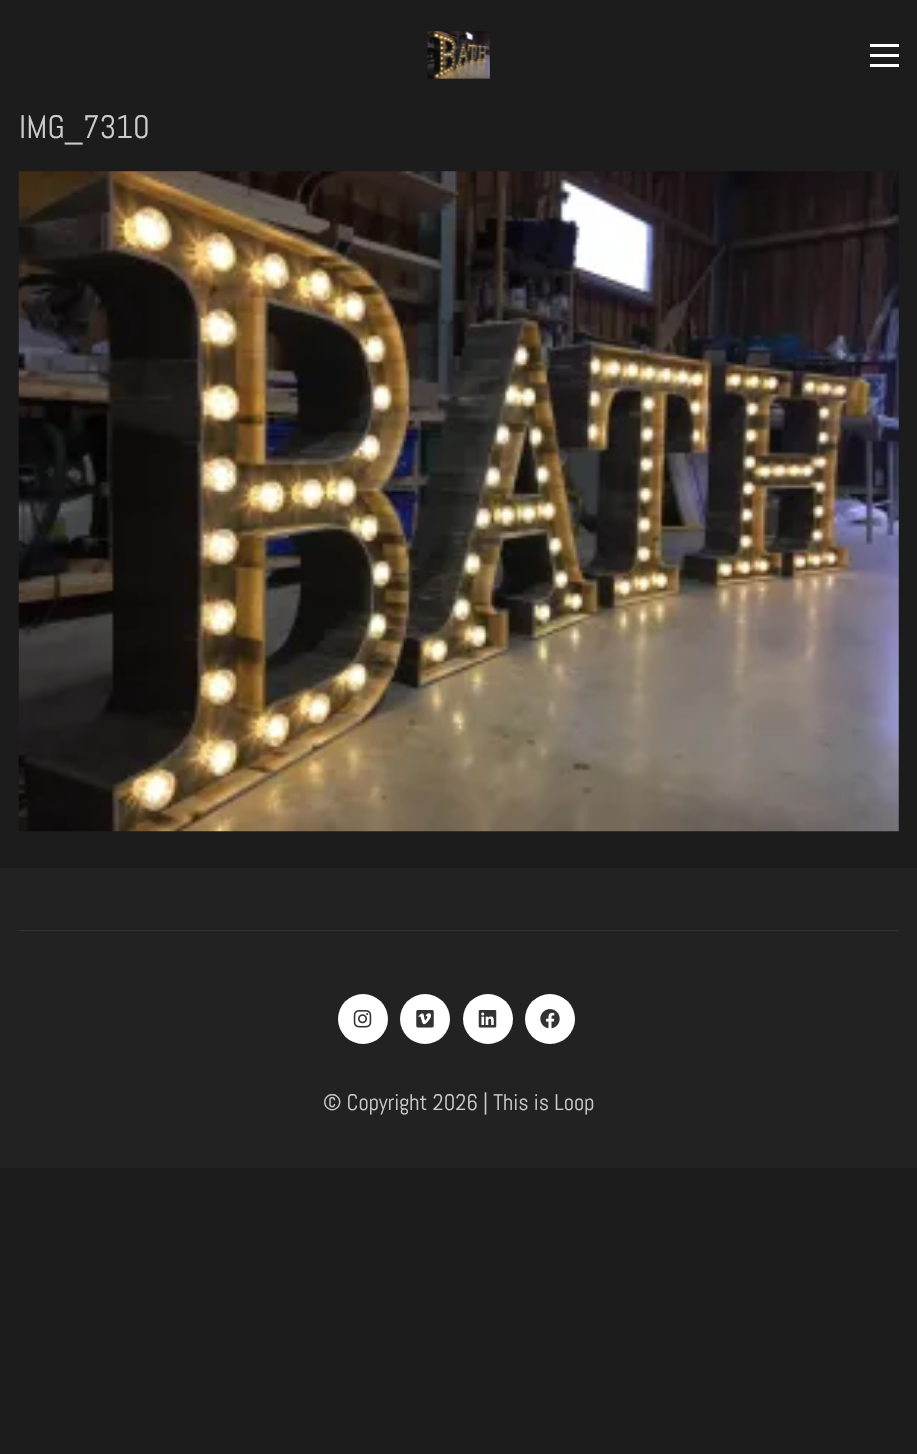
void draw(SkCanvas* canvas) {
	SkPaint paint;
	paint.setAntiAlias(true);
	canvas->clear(0xff1c1c1c);
	canvas->drawImageRect(SkImages::DeferredFromEncodedData(SkData::MakeFromFileName("img1.png")), SkRect::MakeXYWH(427, 31, 63, 48), SkSamplingOptions());
	paint.setColor(0xffffffff);
	canvas->drawRect(SkRect::MakeXYWH(870, 44, 29, 3), paint);
	canvas->drawRect(SkRect::MakeXYWH(870, 54, 29, 3), paint);
	canvas->drawRect(SkRect::MakeXYWH(870, 64, 29, 3), paint);
	SkFont f1(fontMgr->matchFamilyStyle("Abel", SkFontStyle::Normal()), 32.5);
	f1.setSubpixel(true);
	paint.setColor(0xffcccccc);
	canvas->drawString("IMG_7310", 19, 138, f1, paint);
	canvas->drawImageRect(SkImages::DeferredFromEncodedData(SkData::MakeFromFileName("img2.png")), SkRect::MakeXYWH(18, 171, 881, 661), SkSamplingOptions());
	paint.setColor(0xff222222);
	canvas->drawRect(SkRect::MakeXYWH(0, 868, 917, 300), paint);
	paint.setColor(0xff333333);
	canvas->drawRect(SkRect::MakeXYWH(19, 930, 880, 1), paint);
	paint.setColor(0xffffffff);
	canvas->drawCircle(363, 1019, 25, paint);
	canvas->drawImageRect(SkImages::DeferredFromEncodedData(SkData::MakeFromFileName("img3.png")), SkRect::MakeXYWH(353, 1010, 19, 18), SkSamplingOptions());
	canvas->drawCircle(425, 1019, 25, paint);
	canvas->drawImageRect(SkImages::DeferredFromEncodedData(SkData::MakeFromFileName("img4.png")), SkRect::MakeXYWH(416, 1010, 18, 18), SkSamplingOptions());
	canvas->drawCircle(488, 1019, 25, paint);
	canvas->drawImageRect(SkImages::DeferredFromEncodedData(SkData::MakeFromFileName("img5.png")), SkRect::MakeXYWH(478, 1010, 19, 18), SkSamplingOptions());
	canvas->drawCircle(550, 1019, 25, paint);
	canvas->drawImageRect(SkImages::DeferredFromEncodedData(SkData::MakeFromFileName("img6.png")), SkRect::MakeXYWH(540, 1009, 20, 20), SkSamplingOptions());
	SkFont f2(fontMgr->matchFamilyStyle("Abel", SkFontStyle::Normal()), 22.5);
	f2.setSubpixel(true);
	paint.setColor(0xffcccccc);
	canvas->drawString("© Copyright 2026 | This is Loop", 323, 1110, f2, paint);
}
